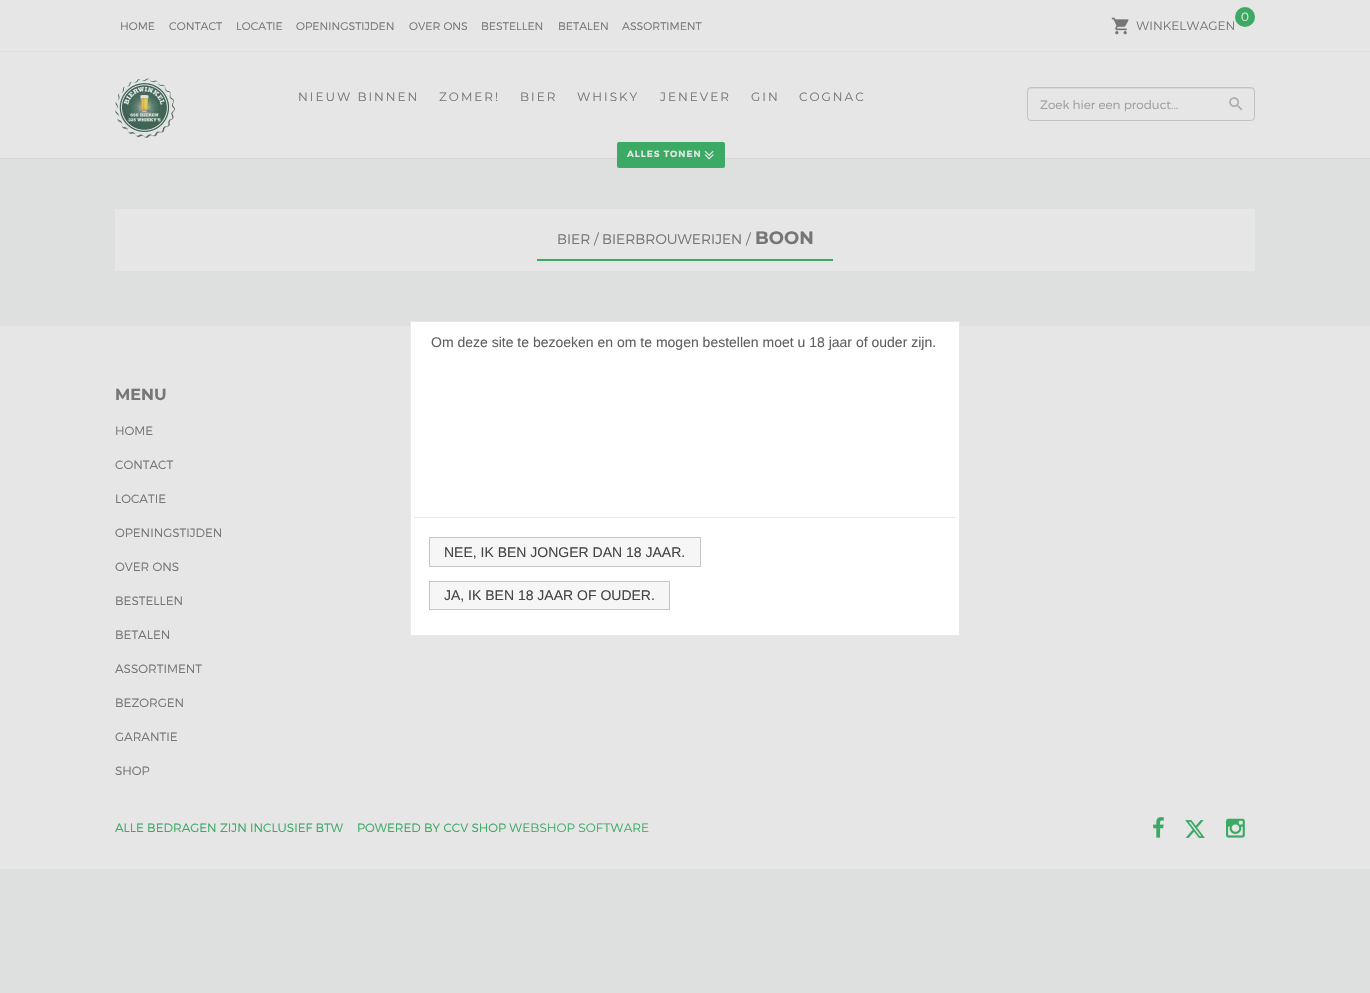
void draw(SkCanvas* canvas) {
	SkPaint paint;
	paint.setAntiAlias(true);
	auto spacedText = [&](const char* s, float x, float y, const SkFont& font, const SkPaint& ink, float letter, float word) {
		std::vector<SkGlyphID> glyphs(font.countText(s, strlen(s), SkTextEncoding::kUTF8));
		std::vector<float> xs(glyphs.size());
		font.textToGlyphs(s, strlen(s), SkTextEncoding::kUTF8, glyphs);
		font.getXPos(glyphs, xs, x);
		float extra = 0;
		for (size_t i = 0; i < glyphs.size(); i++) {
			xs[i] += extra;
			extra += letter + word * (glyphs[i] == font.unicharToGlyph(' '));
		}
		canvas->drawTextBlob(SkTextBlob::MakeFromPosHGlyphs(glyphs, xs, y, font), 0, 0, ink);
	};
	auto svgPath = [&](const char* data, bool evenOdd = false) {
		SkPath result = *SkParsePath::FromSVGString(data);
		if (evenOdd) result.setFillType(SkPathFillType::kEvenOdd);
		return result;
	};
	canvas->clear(0xffdedfdf);
	paint.setColor(0xffe6e6e6);
	canvas->drawRect(SkRect::MakeXYWH(0, 0, 1370, 158), paint);
	paint.setColor(0xffd5d5d5);
	canvas->drawRect(SkRect::MakeXYWH(0, 158, 1370, 1), paint);
	SkFont f1(fontMgr->matchFamilyStyle("Montserrat", SkFontStyle(300, SkFontStyle::kNormal_Width, SkFontStyle::kUpright_Slant)), 11);
	f1.setSubpixel(true);
	paint.setColor(0xff757678);
	canvas->drawString("HOME", 120, 30, f1, paint);
	canvas->drawString("CONTACT", 169, 30, f1, paint);
	canvas->drawString("LOCATIE", 236, 30, f1, paint);
	canvas->drawString("OPENINGSTIJDEN", 296, 30, f1, paint);
	canvas->drawString("OVER ONS", 409, 30, f1, paint);
	canvas->drawString("BESTELLEN", 481, 30, f1, paint);
	canvas->drawString("BETALEN", 558, 30, f1, paint);
	canvas->drawString("ASSORTIMENT", 622, 30, f1, paint);
	canvas->drawImageRect(SkImages::DeferredFromEncodedData(SkData::MakeFromFileName("img1.png")), SkRect::MakeXYWH(1111, 17, 18, 18), SkSamplingOptions());
	SkFont f2(fontMgr->matchFamilyStyle("Montserrat", SkFontStyle::Normal()), 12);
	f2.setSubpixel(true);
	canvas->drawString("WINKELWAGEN", 1136, 30, f2, paint);
	paint.setColor(0xff3ca964);
	canvas->drawCircle(1245, 17, 10, paint);
	paint.setColor(0xffe6e6e6);
	canvas->drawString("0", 1241, 21, f2, paint);
	paint.setColor(0xffdedfdf);
	canvas->drawRect(SkRect::MakeXYWH(0, 51, 1370, 1), paint);
	canvas->drawImageRect(SkImages::DeferredFromEncodedData(SkData::MakeFromFileName("img2.png")), SkRect::MakeXYWH(115, 78, 60, 60), SkSamplingOptions());
	paint.setColor(0xff757678);
	spacedText("NIEUW BINNEN", 298, 101, f2, paint, 2, 0);
	spacedText("ZOMER!", 439, 101, f2, paint, 2, 0);
	spacedText("BIER", 520, 101, f2, paint, 2, 0);
	spacedText("WHISKY", 577, 101, f2, paint, 2, 0);
	spacedText("JENEVER", 660, 101, f2, paint, 2, 0);
	spacedText("GIN", 751, 101, f2, paint, 2, 0);
	spacedText("COGNAC", 799, 101, f2, paint, 2, 0);
	paint.setColor(0xff3ca964);
	canvas->drawRoundRect(SkRect::MakeXYWH(617, 142, 108, 26), 2, 2, paint);
	SkFont f3(fontMgr->matchFamilyStyle("Montserrat", SkFontStyle(600, SkFontStyle::kNormal_Width, SkFontStyle::kUpright_Slant)), 9);
	f3.setSubpixel(true);
	paint.setColor(0xffe6e6e6);
	spacedText("ALLES TONEN", 627, 157, f3, paint, 1, 0);
	canvas->drawImageRect(SkImages::DeferredFromEncodedData(SkData::MakeFromFileName("img3.png")), SkRect::MakeXYWH(704, 150, 10, 10), SkSamplingOptions());
	paint.setColor(0xffd8d8d8);
	canvas->drawPath(svgPath("M1031 89H1251C1253 89 1254 90 1254 92V91C1254 89 1253 88 1251 88H1031C1029 88 1028 89 1028 91V92C1028 90 1029 89 1031 89Z"), paint);
	paint.setStroke(true);
	paint.setStrokeWidth(1);
	paint.setColor(0xffc2c2c2);
	canvas->drawRoundRect(SkRect::MakeXYWH(1027.5, 87.5, 227, 33), 3.5, 3.5, paint);
	SkFont f4(fontMgr->matchFamilyStyle("Montserrat", SkFontStyle(300, SkFontStyle::kNormal_Width, SkFontStyle::kUpright_Slant)), 12);
	f4.setSubpixel(true);
	paint.setStroke(false);
	paint.setColor(0xff9e9e9e);
	canvas->drawString("Zoek hier een product...", 1040, 109, f4, paint);
	canvas->drawImageRect(SkImages::DeferredFromEncodedData(SkData::MakeFromFileName("img4.png")), SkRect::MakeXYWH(1229, 97, 14, 14), SkSamplingOptions());
	paint.setColor(0xffe6e6e6);
	canvas->drawRect(SkRect::MakeXYWH(115, 209, 1140, 62), paint);
	paint.setColor(0xff3ca964);
	canvas->drawRect(SkRect::MakeXYWH(537, 259, 296, 2), paint);
	SkFont f5(fontMgr->matchFamilyStyle("Montserrat", SkFontStyle(300, SkFontStyle::kNormal_Width, SkFontStyle::kUpright_Slant)), 14);
	f5.setSubpixel(true);
	paint.setColor(0xff757678);
	canvas->drawString("BIER", 557, 244, f5, paint);
	SkFont f6(fontMgr->matchFamilyStyle("Montserrat", SkFontStyle::Normal()), 14);
	f6.setSubpixel(true);
	canvas->drawString("/", 594, 244, f6, paint);
	canvas->drawString("BIERBROUWERIJEN", 602, 244, f5, paint);
	canvas->drawString("/", 746, 244, f6, paint);
	SkFont f7(fontMgr->matchFamilyStyle("Montserrat", SkFontStyle::Bold()), 18);
	f7.setSubpixel(true);
	canvas->drawString("BOON", 755, 244, f7, paint);
	paint.setColor(0xffe6e6e6);
	canvas->drawRect(SkRect::MakeXYWH(0, 326, 1370, 543), paint);
	SkFont f8(fontMgr->matchFamilyStyle("Montserrat", SkFontStyle::Bold()), 16);
	f8.setSubpixel(true);
	paint.setColor(0xff757678);
	canvas->drawString("MENU", 115, 400, f8, paint);
	canvas->drawString("HOME", 115, 435, f4, paint);
	canvas->drawString("CONTACT", 115, 469, f4, paint);
	canvas->drawString("LOCATIE", 115, 503, f4, paint);
	canvas->drawString("OPENINGSTIJDEN", 115, 537, f4, paint);
	canvas->drawString("OVER ONS", 115, 571, f4, paint);
	canvas->drawString("BESTELLEN", 115, 605, f4, paint);
	canvas->drawString("BETALEN", 115, 639, f4, paint);
	canvas->drawString("ASSORTIMENT", 115, 673, f4, paint);
	canvas->drawString("BEZORGEN", 115, 707, f4, paint);
	canvas->drawString("GARANTIE", 115, 741, f4, paint);
	canvas->drawString("SHOP", 115, 775, f4, paint);
	paint.setColor(0xff3ca964);
	canvas->drawString("ALLE BEDRAGEN ZIJN INCLUSIEF BTW", 115, 832, f4, paint);
	canvas->drawString("POWERED BY CCV SHOP", 357, 832, f4, paint);
	canvas->drawString("WEBSHOP SOFTWARE", 509, 832, f2, paint);
	canvas->drawImageRect(SkImages::DeferredFromEncodedData(SkData::MakeFromFileName("img5.png")), SkRect::MakeXYWH(1153, 817, 11, 21), SkSamplingOptions());
	canvas->drawImageRect(SkImages::DeferredFromEncodedData(SkData::MakeFromFileName("img6.png")), SkRect::MakeXYWH(1185, 820, 20, 18), SkSamplingOptions());
	canvas->drawImageRect(SkImages::DeferredFromEncodedData(SkData::MakeFromFileName("img7.png")), SkRect::MakeXYWH(1226, 818, 19, 20), SkSamplingOptions());
	paint.setColor(0xffffffff);
	canvas->drawRect(SkRect::MakeXYWH(410.5, 321.5, 549, 314), paint);
	paint.setStroke(true);
	paint.setColor(0xffe8e8e8);
	canvas->drawRect(SkRect::MakeXYWH(410.5, 321.5, 549, 314), paint);
	SkFont f9(fontMgr->matchFamilyStyle("Liberation Sans", SkFontStyle::Normal()), 14);
	f9.setSubpixel(true);
	paint.setStroke(false);
	paint.setColor(0xff5e6062);
	canvas->drawString("Om deze site te bezoeken en om te mogen bestellen moet u 18 jaar of ouder zijn.", 431, 347, f9, paint);
	paint.setColor(0xffe8e8e8);
	canvas->drawRect(SkRect::MakeXYWH(414, 517, 542, 1), paint);
	paint.setColor(0xfff6f6f6);
	canvas->drawRect(SkRect::MakeXYWH(429.5, 537.5, 271, 29), paint);
	paint.setStroke(true);
	paint.setColor(0xffc5c5c5);
	canvas->drawRect(SkRect::MakeXYWH(429.5, 537.5, 271, 29), paint);
	paint.setStroke(false);
	paint.setColor(0xff454545);
	canvas->drawString("NEE, IK BEN JONGER DAN 18 JAAR.", 444, 557, f9, paint);
	paint.setColor(0xfff6f6f6);
	canvas->drawRect(SkRect::MakeXYWH(429.5, 581.5, 240, 28), paint);
	paint.setStroke(true);
	paint.setColor(0xffc5c5c5);
	canvas->drawRect(SkRect::MakeXYWH(429.5, 581.5, 240, 28), paint);
	paint.setStroke(false);
	paint.setColor(0xff454545);
	canvas->drawString("JA, IK BEN 18 JAAR OF OUDER.", 444, 600, f9, paint);
}
